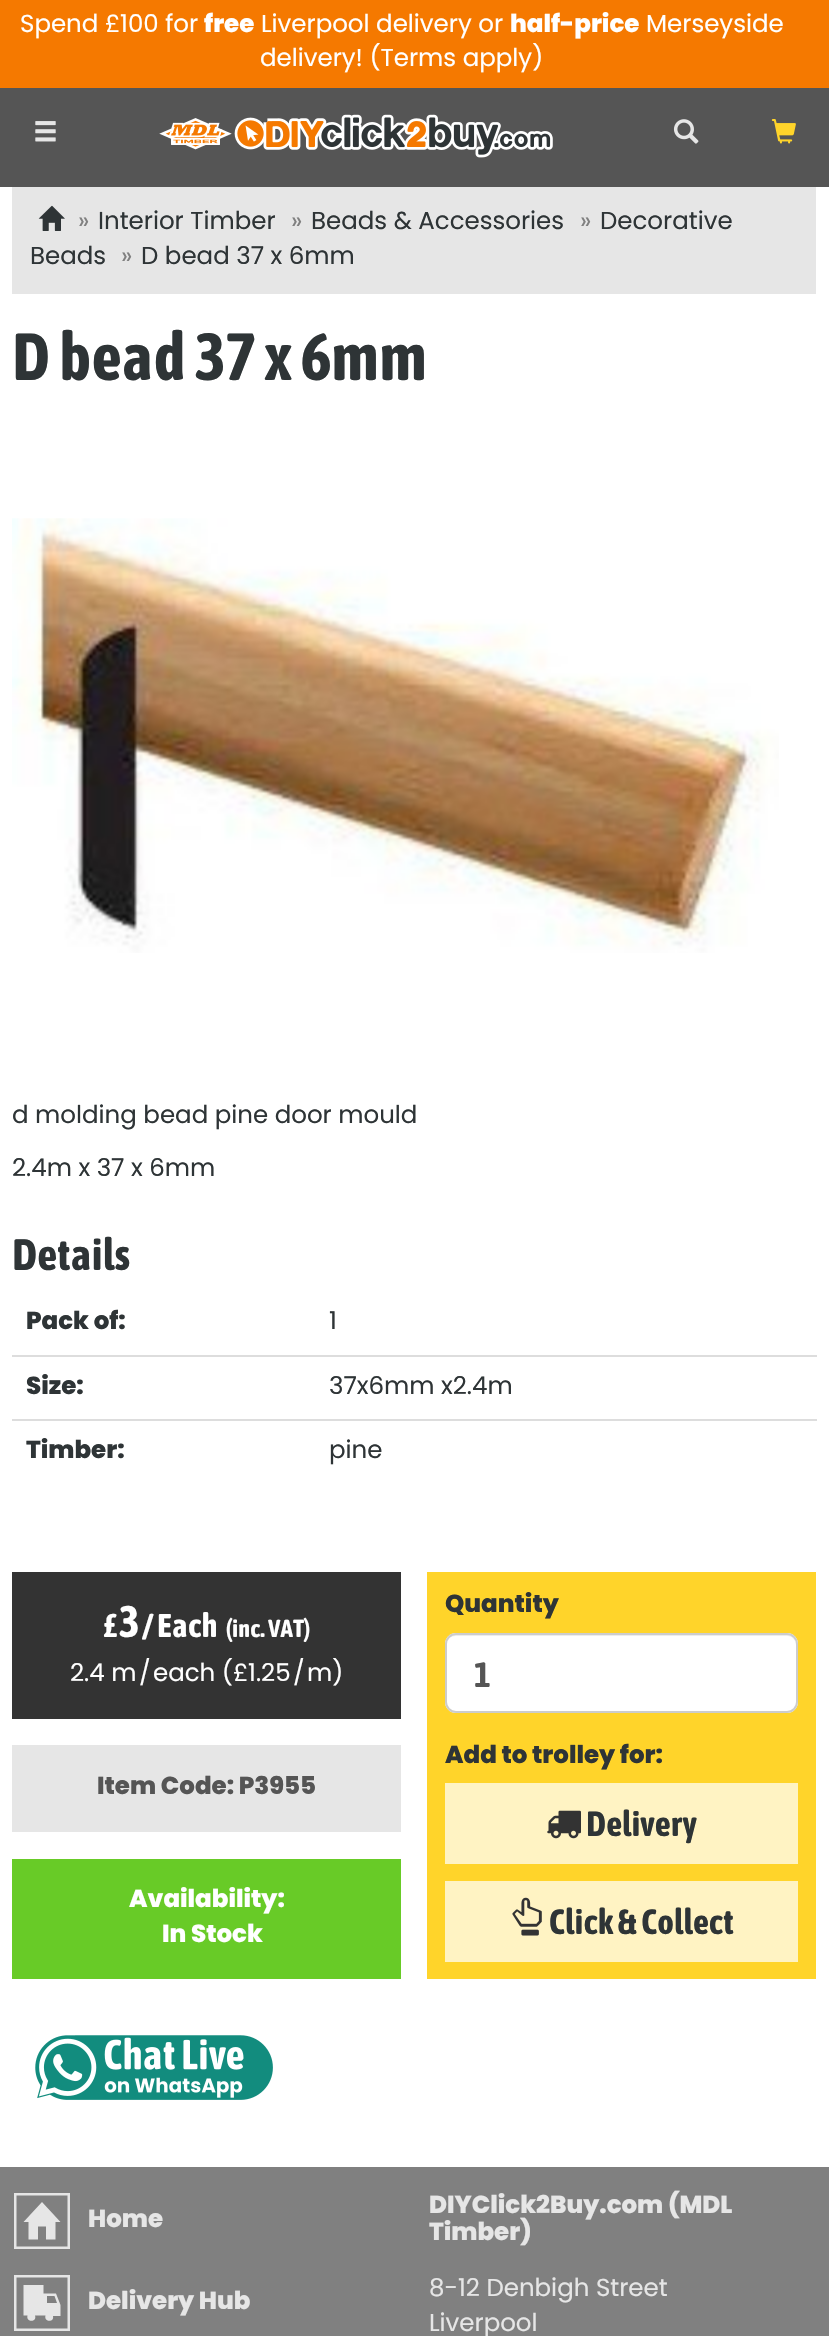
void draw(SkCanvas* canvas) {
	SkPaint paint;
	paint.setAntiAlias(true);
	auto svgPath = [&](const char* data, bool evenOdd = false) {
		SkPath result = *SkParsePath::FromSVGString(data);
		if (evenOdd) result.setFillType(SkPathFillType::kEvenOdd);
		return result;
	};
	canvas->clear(0xffffffff);
	paint.setColor(0xfff57900);
	canvas->drawRect(SkRect::MakeXYWH(0, 0, 829, 88), paint);
	SkFont f1(fontMgr->matchFamilyStyle("Poppins", SkFontStyle::Normal()), 24.5);
	f1.setSubpixel(true);
	paint.setColor(0xffffffff);
	canvas->drawString("Spend £100 for", 20, 32, f1, paint);
	SkFont f2(fontMgr->matchFamilyStyle("Poppins", SkFontStyle(800, SkFontStyle::kNormal_Width, SkFontStyle::kUpright_Slant)), 24.5);
	f2.setSubpixel(true);
	canvas->drawString("free", 204, 32, f2, paint);
	canvas->drawString("Liverpool delivery or", 261, 32, f1, paint);
	canvas->drawString("half-price", 510, 32, f2, paint);
	canvas->drawString("Merseyside", 646, 32, f1, paint);
	canvas->drawString("delivery! (Terms apply)", 260, 66, f1, paint);
	paint.setColor(0xff555555);
	canvas->drawRect(SkRect::MakeXYWH(0, 88, 829, 99), paint);
	canvas->drawImageRect(SkImages::DeferredFromEncodedData(SkData::MakeFromFileName("img1.png")), SkRect::MakeXYWH(35, 121, 21, 21), SkSamplingOptions());
	canvas->drawImageRect(SkImages::DeferredFromEncodedData(SkData::MakeFromFileName("img2.png")), SkRect::MakeXYWH(159, 114, 394, 44), SkSamplingOptions());
	canvas->drawImageRect(SkImages::DeferredFromEncodedData(SkData::MakeFromFileName("img3.png")), SkRect::MakeXYWH(673, 119, 26, 25), SkSamplingOptions());
	canvas->drawImageRect(SkImages::DeferredFromEncodedData(SkData::MakeFromFileName("img4.png")), SkRect::MakeXYWH(771, 119, 25, 25), SkSamplingOptions());
	paint.setColor(0xffe6e6e6);
	canvas->drawRect(SkRect::MakeXYWH(12, 187, 804, 107), paint);
	canvas->drawImageRect(SkImages::DeferredFromEncodedData(SkData::MakeFromFileName("img5.png")), SkRect::MakeXYWH(38, 205, 27, 26), SkSamplingOptions());
	paint.setColor(0xff808080);
	canvas->drawString("»", 78, 229, f1, paint);
	paint.setColor(0xff2e3436);
	canvas->drawString("Interior Timber", 98, 229, f1, paint);
	paint.setColor(0xff808080);
	canvas->drawString("»", 291, 229, f1, paint);
	paint.setColor(0xff2e3436);
	canvas->drawString("Beads & Accessories", 311, 229, f1, paint);
	paint.setColor(0xff808080);
	canvas->drawString("»", 580, 229, f1, paint);
	paint.setColor(0xff2e3436);
	canvas->drawString("Decorative", 600, 229, f1, paint);
	canvas->drawString("Beads", 30, 264, f1, paint);
	paint.setColor(0xff808080);
	canvas->drawString("»", 121, 264, f1, paint);
	paint.setColor(0xff2e3436);
	canvas->drawString("D bead 37 x 6mm", 141, 264, f1, paint);
	SkFont f3(fontMgr->matchFamilyStyle("Asap Condensed", SkFontStyle::Bold()), 66.5);
	f3.setSubpixel(true);
	canvas->drawString("D bead 37 x 6mm", 12, 380, f3, paint);
	canvas->drawImageRect(SkImages::DeferredFromEncodedData(SkData::MakeFromFileName("img6.png")), SkRect::MakeXYWH(12, 518, 767, 435), SkSamplingOptions());
	canvas->drawString("d molding bead pine door mould", 12, 1123, f1, paint);
	canvas->drawString("2.4m x 37 x 6mm", 12, 1176, f1, paint);
	SkFont f4(fontMgr->matchFamilyStyle("Asap Condensed", SkFontStyle::Bold()), 44);
	f4.setSubpixel(true);
	canvas->drawString("Details", 12, 1270, f4, paint);
	canvas->drawString("Pack of:", 26, 1329, f2, paint);
	canvas->drawString("1", 329, 1329, f1, paint);
	canvas->drawString("Size:", 26, 1394, f2, paint);
	paint.setColor(0xffdddddd);
	canvas->drawRect(SkRect::MakeXYWH(12, 1355, 805, 2), paint);
	paint.setColor(0xff2e3436);
	canvas->drawString("37x6mm x2.4m", 329, 1394, f1, paint);
	canvas->drawString("Timber:", 26, 1458, f2, paint);
	paint.setColor(0xffdddddd);
	canvas->drawRect(SkRect::MakeXYWH(12, 1419, 805, 2), paint);
	paint.setColor(0xff2e3436);
	canvas->drawString("pine", 329, 1458, f1, paint);
	paint.setColor(0xff333333);
	canvas->drawRect(SkRect::MakeXYWH(12, 1572, 389, 147), paint);
	SkFont f5(fontMgr->matchFamilyStyle("Asap Condensed", SkFontStyle::Bold()), 33);
	f5.setSubpixel(true);
	paint.setColor(0xffffffff);
	canvas->drawString("£", 103, 1637, f5, paint);
	canvas->drawString("3", 119, 1637, f4, paint);
	canvas->drawString("/", 142, 1637, f5, paint);
	canvas->drawString("Each", 157, 1637, f5, paint);
	SkFont f6(fontMgr->matchFamilyStyle("Asap Condensed", SkFontStyle::Bold()), 24.5);
	f6.setSubpixel(true);
	canvas->drawString("(inc. VAT)", 226, 1637, f6, paint);
	canvas->drawString("2.4 m", 70, 1681, f1, paint);
	canvas->drawString("/", 139, 1681, f1, paint);
	canvas->drawString("each (£1.25", 153, 1681, f1, paint);
	canvas->drawString("/", 293, 1681, f1, paint);
	canvas->drawString("m)", 307, 1681, f1, paint);
	paint.setColor(0xffffd42a);
	canvas->drawRect(SkRect::MakeXYWH(427, 1572, 389, 407), paint);
	paint.setColor(0xff2e3436);
	canvas->drawString("Quantity", 445, 1612, f2, paint);
	paint.setColor(0xffffffff);
	canvas->drawRoundRect(SkRect::MakeXYWH(445, 1633, 353, 80), 11, 11, paint);
	paint.setColor(0xffececec);
	canvas->drawPath(svgPath("M455 1636H788C792 1636 796 1640 796 1645V1644C796 1639 792 1635 787 1635H455C450 1635 446 1639 446 1644V1645C446 1640 450 1636 455 1636Z"), paint);
	paint.setStroke(true);
	paint.setStrokeWidth(2);
	paint.setColor(0xffcccccc);
	canvas->drawRoundRect(SkRect::MakeXYWH(446, 1634, 351, 78), 10, 10, paint);
	SkFont f7(fontMgr->matchFamilyStyle("Asap Condensed", SkFontStyle::Bold()), 35);
	f7.setSubpixel(true);
	paint.setStroke(false);
	paint.setColor(0xff555555);
	canvas->drawString("1", 474, 1687, f7, paint);
	paint.setColor(0xff2e3436);
	canvas->drawString("Add to trolley for:", 445, 1763, f2, paint);
	paint.setColor(0xfffff3c3);
	canvas->drawRect(SkRect::MakeXYWH(445, 1783, 353, 81), paint);
	canvas->drawImageRect(SkImages::DeferredFromEncodedData(SkData::MakeFromFileName("img7.png")), SkRect::MakeXYWH(547, 1810, 34, 29), SkSamplingOptions());
	paint.setColor(0xff2e3436);
	canvas->drawString("Delivery", 586, 1836, f7, paint);
	paint.setColor(0xfffff3c3);
	canvas->drawRect(SkRect::MakeXYWH(445, 1881, 353, 81), paint);
	canvas->drawImageRect(SkImages::DeferredFromEncodedData(SkData::MakeFromFileName("img8.png")), SkRect::MakeXYWH(512, 1897, 30, 39), SkSamplingOptions());
	paint.setColor(0xff2e3436);
	canvas->drawString("Click & Collect", 549, 1934, f7, paint);
	paint.setColor(0xffe6e6e6);
	canvas->drawRect(SkRect::MakeXYWH(12, 1745, 389, 87), paint);
	paint.setColor(0xff555555);
	canvas->drawString("Item Code: P3955", 97, 1794, f2, paint);
	paint.setColor(0xff68cb27);
	canvas->drawRect(SkRect::MakeXYWH(12, 1859, 389, 120), paint);
	paint.setColor(0xffffffff);
	canvas->drawString("Availability:", 129, 1907, f2, paint);
	canvas->drawString("In Stock", 162, 1942, f2, paint);
	canvas->drawImageRect(SkImages::DeferredFromEncodedData(SkData::MakeFromFileName("img9.png")), SkRect::MakeXYWH(35, 2035, 238, 65), SkSamplingOptions());
	paint.setColor(0xff808080);
	canvas->drawRect(SkRect::MakeXYWH(0, 2167, 829, 169), paint);
	paint.setStroke(true);
	paint.setStrokeWidth(2.5);
	paint.setColor(0xffe6e6e6);
	canvas->drawRect(SkRect::MakeXYWH(15.25, 2194.25, 53.5, 53.5), paint);
	paint.setStroke(false);
	canvas->drawPath(svgPath("M42 2202L23.5 2222H28.5V2239.5H38V2226.5H46V2239.5H55.5V2222H60.5Z"), paint);
	canvas->drawString("Home", 88, 2227, f2, paint);
	paint.setStroke(true);
	canvas->drawRect(SkRect::MakeXYWH(15.25, 2276.25, 53.5, 53.5), paint);
	paint.setStroke(false);
	canvas->drawPath(svgPath("M23.5 2285V2315.5H27.5C25.5 2322.5 37.5 2322.5 35 2315.5H45.5C43.5 2322 54.5 2323 53 2316H60.5V2305L56 2293.5H43.5V2285ZM47 2296H54.5L57 2303H47Z"), paint);
	canvas->drawString("Delivery Hub", 88, 2309, f2, paint);
	canvas->drawString("DIYClick2Buy.com (MDL", 429, 2213, f2, paint);
	canvas->drawString("Timber)", 429, 2240, f2, paint);
	canvas->drawString("8-12 Denbigh Street", 429, 2296, f1, paint);
	canvas->drawString("Liverpool", 429, 2331, f1, paint);
}
